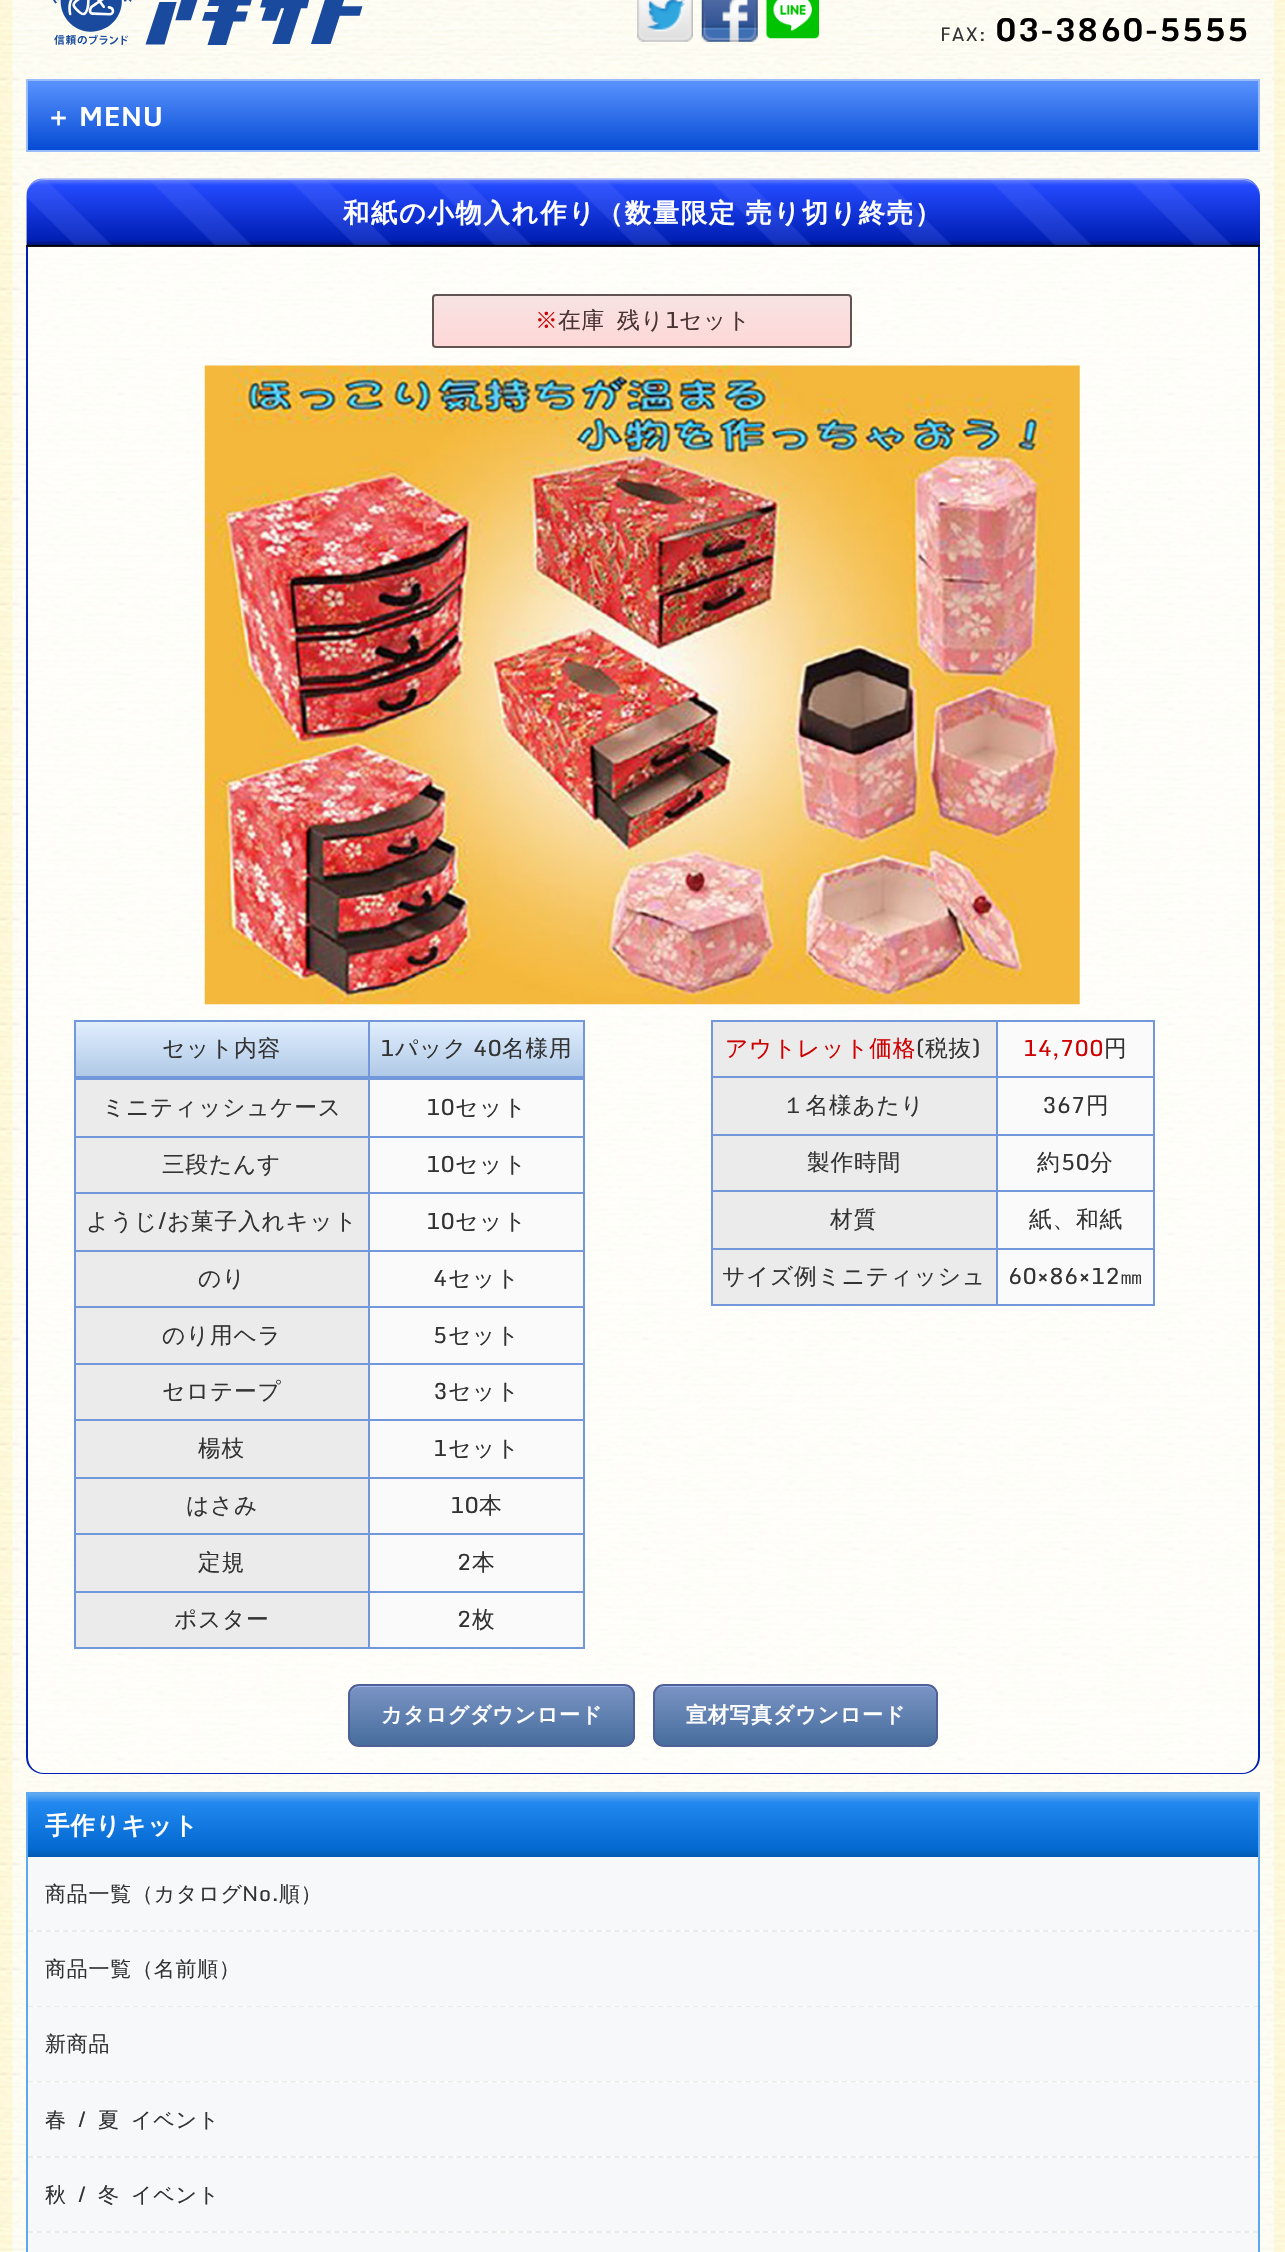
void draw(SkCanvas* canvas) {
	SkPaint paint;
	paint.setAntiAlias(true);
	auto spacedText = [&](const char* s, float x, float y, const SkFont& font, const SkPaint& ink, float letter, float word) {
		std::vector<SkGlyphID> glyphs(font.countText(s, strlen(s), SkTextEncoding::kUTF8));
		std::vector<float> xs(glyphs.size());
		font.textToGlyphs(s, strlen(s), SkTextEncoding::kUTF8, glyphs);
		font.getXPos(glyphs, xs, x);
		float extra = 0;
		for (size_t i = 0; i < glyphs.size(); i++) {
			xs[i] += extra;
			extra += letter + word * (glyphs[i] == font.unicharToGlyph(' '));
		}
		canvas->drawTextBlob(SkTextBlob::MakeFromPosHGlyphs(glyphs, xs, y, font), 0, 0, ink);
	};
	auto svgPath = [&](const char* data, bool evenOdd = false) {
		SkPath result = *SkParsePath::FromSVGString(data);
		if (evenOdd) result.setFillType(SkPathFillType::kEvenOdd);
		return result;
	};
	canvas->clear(0xffffffff);
	canvas->drawImageRect(SkImages::DeferredFromEncodedData(SkData::MakeFromFileName("img1.png")), SkRect::MakeXYWH(0, 0, 1285, 2252), SkSamplingOptions());
	canvas->drawImageRect(SkImages::DeferredFromEncodedData(SkData::MakeFromFileName("img2.png")), SkRect::MakeXYWH(12, 0, 1262, 2252), SkSamplingOptions());
	canvas->drawImageRect(SkImages::DeferredFromEncodedData(SkData::MakeFromFileName("img3.png")), SkRect::MakeXYWH(53, 0, 310, 45), SkSamplingOptions());
	canvas->drawImageRect(SkImages::DeferredFromEncodedData(SkData::MakeFromFileName("img4.png")), SkRect::MakeXYWH(637, 0, 56, 42), SkSamplingOptions());
	canvas->drawImageRect(SkImages::DeferredFromEncodedData(SkData::MakeFromFileName("img5.png")), SkRect::MakeXYWH(701, 0, 57, 42), SkSamplingOptions());
	canvas->drawImageRect(SkImages::DeferredFromEncodedData(SkData::MakeFromFileName("img6.png")), SkRect::MakeXYWH(766, 0, 53, 39), SkSamplingOptions());
	SkFont f1(fontMgr->matchFamilyStyle("Monda", SkFontStyle::Normal()), 19);
	f1.setSubpixel(true);
	paint.setColor(0xff333333);
	spacedText("FAX:", 940, 41, f1, paint, 0.75, 0);
	SkFont f2(fontMgr->matchFamilyStyle("Monda", SkFontStyle::Bold()), 31.5);
	f2.setSubpixel(true);
	paint.setColor(0xff000000);
	spacedText("03-3860-5555", 995, 41, f2, paint, 0.75, 0);
	{
		const SkColor colors[] = {0xff5b94ff, 0xff044ad3};
		const float stops[] = {0, 1};
		const SkPoint ends[] = {{643, 80}, {643, 151}};
		paint.setShader(SkGradientShader::MakeLinear(ends, colors, stops, 2, SkTileMode::kClamp));
		paint.setAlpha(255);
	}
	canvas->drawRect(SkRect::MakeXYWH(28, 81, 1230, 69), paint);
	paint.setStroke(true);
	paint.setStrokeWidth(2);
	paint.setShader(nullptr);
	paint.setColor(0xff9abcfc);
	canvas->drawRect(SkRect::MakeXYWH(27, 80, 1232, 71), paint);
	SkFont f3(fontMgr->matchFamilyStyle("WenQuanYi Zen Hei", SkFontStyle::Bold()), 26.25);
	f3.setSubpixel(true);
	paint.setStroke(false);
	paint.setColor(0xffffffff);
	spacedText("＋", 45, 126, f3, paint, 0.75, 0);
	SkFont f4(fontMgr->matchFamilyStyle("Monda", SkFontStyle::Bold()), 26.25);
	f4.setSubpixel(true);
	spacedText("MENU", 79, 126, f4, paint, 0.75, 0);
	canvas->drawImageRect(SkImages::DeferredFromEncodedData(SkData::MakeFromFileName("img7.png")), SkRect::MakeXYWH(26, 178, 1234, 69), SkSamplingOptions());
	paint.setColor(0x66ffffff);
	canvas->drawPath(svgPath("M44 180H1242C1252 180 1260 188 1260 198C1260 188 1253 179 1242 179H44C33 179 26 188 26 198C26 188 34 180 44 180Z"), paint);
	paint.setColor(0xe6000000);
	canvas->drawRect(SkRect::MakeXYWH(26, 245, 1234, 2), paint);
	paint.setColor(0xffffffff);
	spacedText("和紙の小物入れ作り（数量限定 売り切り終売）", 343, 222, f3, paint, 1.75, -1);
	paint.setColor(0x80ffffff);
	canvas->drawPath(svgPath("M26 247H1260V1757C1260 1767 1252 1775 1242 1775H44C34 1775 26 1767 26 1757Z"), paint);
	paint.setColor(0xff001fb3);
	canvas->drawPath(svgPath("M26 247H1260V1757C1260 1767 1252 1774 1242 1774H44C34 1774 26 1767 26 1757ZM28 247H1258V1757C1258 1766 1251 1773 1242 1773H44C35 1773 28 1766 28 1757Z", true), paint);
	canvas->save();
	canvas->clipPath(svgPath("M436 294H848C850 294 852 296 852 298V344C852 346 850 348 848 348H436C434 348 432 346 432 344V298C432 296 434 294 436 294Z"), true);
	{
		const SkColor colors[] = {0xfff7e3e3, 0xffffd7d7};
		const float stops[] = {0, 1};
		const SkPoint ends[] = {{642, 296}, {642, 347}};
		paint.setShader(SkGradientShader::MakeLinear(ends, colors, stops, 2, SkTileMode::kClamp));
		paint.setAlpha(255);
	}
	canvas->drawRect(SkRect::MakeXYWH(432, 296, 420, 51), paint);
	canvas->restore();
	paint.setStroke(true);
	paint.setShader(nullptr);
	paint.setColor(0xff635454);
	canvas->drawRoundRect(SkRect::MakeXYWH(433, 295, 418, 52), 3, 3, paint);
	SkFont f5(fontMgr->matchFamilyStyle("WenQuanYi Zen Hei", SkFontStyle(500, SkFontStyle::kNormal_Width, SkFontStyle::kUpright_Slant)), 22.75);
	f5.setSubpixel(true);
	paint.setStroke(false);
	paint.setColor(0xffce0000);
	spacedText("※", 535, 328, f5, paint, 0.75, 0);
	paint.setColor(0xff493434);
	spacedText("在庫", 558, 328, f5, paint, 0.75, 0);
	spacedText("残り", 617, 328, f5, paint, 0.75, 0);
	SkFont f6(fontMgr->matchFamilyStyle("Monda", SkFontStyle::Normal()), 22.75);
	f6.setSubpixel(true);
	spacedText("1", 665, 328, f6, paint, 0.75, 0);
	spacedText("セット", 679, 328, f5, paint, 0.75, 0);
	canvas->drawImageRect(SkImages::DeferredFromEncodedData(SkData::MakeFromFileName("img8.png")), SkRect::MakeXYWH(204, 365, 876, 640), SkSamplingOptions());
	paint.setColor(0xfffafafa);
	canvas->drawRect(SkRect::MakeXYWH(370, 1080, 213, 567), paint);
	{
		const SkColor colors[] = {0xffe1eefd, 0xffb0c9e7};
		const float stops[] = {0, 1};
		const SkPoint ends[] = {{222, 1022}, {222, 1076}};
		paint.setShader(SkGradientShader::MakeLinear(ends, colors, stops, 2, SkTileMode::kClamp));
		paint.setAlpha(255);
	}
	canvas->drawRect(SkRect::MakeXYWH(76, 1022, 292, 54), paint);
	paint.setShader(nullptr);
	paint.setColor(0xff7297db);
	canvas->drawRect(SkRect::MakeXYWH(368, 1020, 217, 2), paint);
	canvas->drawRect(SkRect::MakeXYWH(583, 1020, 2, 58), paint);
	canvas->drawRect(SkRect::MakeXYWH(368, 1076, 217, 2), paint);
	canvas->drawRect(SkRect::MakeXYWH(368, 1020, 2, 58), paint);
	canvas->drawRect(SkRect::MakeXYWH(74, 1020, 295, 2), paint);
	canvas->drawRect(SkRect::MakeXYWH(74, 1076, 295, 2), paint);
	canvas->drawRect(SkRect::MakeXYWH(74, 1020, 2, 58), paint);
	paint.setColor(0xff333333);
	spacedText("セット内容", 162, 1056, f5, paint, 0.75, 0);
	{
		const SkColor colors[] = {0xffe1eefd, 0xffb0c9e7};
		const float stops[] = {0, 1};
		const SkPoint ends[] = {{477, 1022}, {477, 1076}};
		paint.setShader(SkGradientShader::MakeLinear(ends, colors, stops, 2, SkTileMode::kClamp));
		paint.setAlpha(255);
	}
	canvas->drawRect(SkRect::MakeXYWH(370, 1022, 213, 54), paint);
	paint.setShader(nullptr);
	paint.setColor(0xff333333);
	spacedText("1", 380, 1056, f6, paint, 0.75, 0);
	spacedText("パック", 395, 1056, f5, paint, 0.75, 0);
	spacedText("40", 473, 1056, f6, paint, 0.75, 0);
	spacedText("名様用", 502, 1056, f5, paint, 0.75, 0);
	paint.setColor(0xffebebeb);
	canvas->drawRect(SkRect::MakeXYWH(76, 1080, 292, 56), paint);
	paint.setColor(0xff7297db);
	canvas->drawRect(SkRect::MakeXYWH(368, 1078, 217, 2), paint);
	canvas->drawRect(SkRect::MakeXYWH(368, 1136, 217, 2), paint);
	canvas->drawRect(SkRect::MakeXYWH(368, 1192, 217, 2), paint);
	canvas->drawRect(SkRect::MakeXYWH(368, 1250, 217, 2), paint);
	canvas->drawRect(SkRect::MakeXYWH(368, 1306, 217, 2), paint);
	canvas->drawRect(SkRect::MakeXYWH(368, 1363, 217, 2), paint);
	canvas->drawRect(SkRect::MakeXYWH(368, 1419, 217, 2), paint);
	canvas->drawRect(SkRect::MakeXYWH(368, 1477, 217, 2), paint);
	canvas->drawRect(SkRect::MakeXYWH(368, 1533, 217, 2), paint);
	canvas->drawRect(SkRect::MakeXYWH(368, 1591, 217, 2), paint);
	canvas->drawRect(SkRect::MakeXYWH(583, 1591, 2, 58), paint);
	canvas->drawRect(SkRect::MakeXYWH(368, 1647, 217, 2), paint);
	canvas->drawRect(SkRect::MakeXYWH(368, 1591, 2, 58), paint);
	canvas->drawRect(SkRect::MakeXYWH(74, 1591, 295, 2), paint);
	canvas->drawRect(SkRect::MakeXYWH(368, 1533, 2, 60), paint);
	canvas->drawRect(SkRect::MakeXYWH(74, 1533, 295, 2), paint);
	canvas->drawRect(SkRect::MakeXYWH(368, 1477, 2, 58), paint);
	canvas->drawRect(SkRect::MakeXYWH(74, 1477, 295, 2), paint);
	canvas->drawRect(SkRect::MakeXYWH(368, 1419, 2, 60), paint);
	canvas->drawRect(SkRect::MakeXYWH(74, 1419, 295, 2), paint);
	canvas->drawRect(SkRect::MakeXYWH(368, 1363, 2, 58), paint);
	canvas->drawRect(SkRect::MakeXYWH(74, 1363, 295, 2), paint);
	canvas->drawRect(SkRect::MakeXYWH(368, 1306, 2, 59), paint);
	canvas->drawRect(SkRect::MakeXYWH(74, 1306, 295, 2), paint);
	canvas->drawRect(SkRect::MakeXYWH(368, 1250, 2, 57), paint);
	canvas->drawRect(SkRect::MakeXYWH(74, 1250, 295, 2), paint);
	canvas->drawRect(SkRect::MakeXYWH(368, 1192, 2, 59), paint);
	canvas->drawRect(SkRect::MakeXYWH(74, 1192, 295, 2), paint);
	canvas->drawRect(SkRect::MakeXYWH(368, 1136, 2, 58), paint);
	canvas->drawRect(SkRect::MakeXYWH(74, 1136, 295, 2), paint);
	canvas->drawRect(SkRect::MakeXYWH(368, 1078, 2, 60), paint);
	canvas->drawRect(SkRect::MakeXYWH(74, 1078, 295, 2), paint);
	canvas->drawRect(SkRect::MakeXYWH(74, 1647, 295, 2), paint);
	canvas->drawRect(SkRect::MakeXYWH(74, 1591, 2, 58), paint);
	canvas->drawRect(SkRect::MakeXYWH(74, 1533, 2, 60), paint);
	canvas->drawRect(SkRect::MakeXYWH(74, 1477, 2, 58), paint);
	canvas->drawRect(SkRect::MakeXYWH(74, 1419, 2, 60), paint);
	canvas->drawRect(SkRect::MakeXYWH(74, 1363, 2, 58), paint);
	canvas->drawRect(SkRect::MakeXYWH(74, 1306, 2, 59), paint);
	canvas->drawRect(SkRect::MakeXYWH(74, 1250, 2, 57), paint);
	canvas->drawRect(SkRect::MakeXYWH(74, 1192, 2, 59), paint);
	canvas->drawRect(SkRect::MakeXYWH(74, 1136, 2, 58), paint);
	canvas->drawRect(SkRect::MakeXYWH(74, 1078, 2, 60), paint);
	paint.setColor(0xff333333);
	spacedText("ミニティッシュケース", 102, 1115, f5, paint, 0.75, 0);
	paint.setColor(0xff7297db);
	canvas->drawRect(SkRect::MakeXYWH(583, 1533, 2, 60), paint);
	canvas->drawRect(SkRect::MakeXYWH(583, 1477, 2, 58), paint);
	canvas->drawRect(SkRect::MakeXYWH(583, 1419, 2, 60), paint);
	canvas->drawRect(SkRect::MakeXYWH(583, 1363, 2, 58), paint);
	canvas->drawRect(SkRect::MakeXYWH(583, 1306, 2, 59), paint);
	canvas->drawRect(SkRect::MakeXYWH(583, 1250, 2, 57), paint);
	canvas->drawRect(SkRect::MakeXYWH(583, 1192, 2, 59), paint);
	canvas->drawRect(SkRect::MakeXYWH(583, 1136, 2, 58), paint);
	canvas->drawRect(SkRect::MakeXYWH(583, 1078, 2, 60), paint);
	paint.setColor(0xff333333);
	spacedText("10", 426, 1115, f6, paint, 0.75, 0);
	spacedText("セット", 455, 1115, f5, paint, 0.75, 0);
	paint.setColor(0xffebebeb);
	canvas->drawRect(SkRect::MakeXYWH(76, 1138, 292, 54), paint);
	paint.setColor(0xff333333);
	spacedText("三段たんす", 162, 1172, f5, paint, 0.75, 0);
	spacedText("10", 426, 1172, f6, paint, 0.75, 0);
	spacedText("セット", 455, 1172, f5, paint, 0.75, 0);
	paint.setColor(0xffebebeb);
	canvas->drawRect(SkRect::MakeXYWH(76, 1194, 292, 56), paint);
	paint.setColor(0xff333333);
	spacedText("ようじ", 86, 1229, f5, paint, 0.75, 0);
	spacedText("/", 158, 1229, f6, paint, 0.75, 0);
	spacedText("お菓子入れキット", 167, 1229, f5, paint, 0.75, 0);
	spacedText("10", 426, 1229, f6, paint, 0.75, 0);
	spacedText("セット", 455, 1229, f5, paint, 0.75, 0);
	paint.setColor(0xffebebeb);
	canvas->drawRect(SkRect::MakeXYWH(76, 1252, 292, 54), paint);
	paint.setColor(0xff333333);
	spacedText("のり", 198, 1286, f5, paint, 0.75, 0);
	spacedText("4", 433, 1286, f6, paint, 0.75, 0);
	spacedText("セット", 448, 1286, f5, paint, 0.75, 0);
	paint.setColor(0xffebebeb);
	canvas->drawRect(SkRect::MakeXYWH(76, 1308, 292, 55), paint);
	paint.setColor(0xff333333);
	spacedText("のり用ヘラ", 162, 1343, f5, paint, 0.75, 0);
	spacedText("5", 433, 1343, f6, paint, 0.75, 0);
	spacedText("セット", 448, 1343, f5, paint, 0.75, 0);
	paint.setColor(0xffebebeb);
	canvas->drawRect(SkRect::MakeXYWH(76, 1365, 292, 54), paint);
	paint.setColor(0xff333333);
	spacedText("セロテープ", 162, 1399, f5, paint, 0.75, 0);
	spacedText("3", 433, 1399, f6, paint, 0.75, 0);
	spacedText("セット", 448, 1399, f5, paint, 0.75, 0);
	paint.setColor(0xffebebeb);
	canvas->drawRect(SkRect::MakeXYWH(76, 1421, 292, 56), paint);
	paint.setColor(0xff333333);
	spacedText("楊枝", 198, 1456, f5, paint, 0.75, 0);
	spacedText("1", 433, 1456, f6, paint, 0.75, 0);
	spacedText("セット", 448, 1456, f5, paint, 0.75, 0);
	paint.setColor(0xffebebeb);
	canvas->drawRect(SkRect::MakeXYWH(76, 1479, 292, 54), paint);
	paint.setColor(0xff333333);
	spacedText("はさみ", 186, 1513, f5, paint, 0.75, 0);
	spacedText("10", 450, 1513, f6, paint, 0.75, 0);
	spacedText("本", 479, 1513, f5, paint, 0.75, 0);
	paint.setColor(0xffebebeb);
	canvas->drawRect(SkRect::MakeXYWH(76, 1535, 292, 56), paint);
	paint.setColor(0xff333333);
	spacedText("定規", 198, 1570, f5, paint, 0.75, 0);
	spacedText("2", 457, 1570, f6, paint, 0.75, 0);
	spacedText("本", 472, 1570, f5, paint, 0.75, 0);
	paint.setColor(0xffebebeb);
	canvas->drawRect(SkRect::MakeXYWH(76, 1593, 292, 54), paint);
	paint.setColor(0xff333333);
	spacedText("ポスター", 174, 1627, f5, paint, 0.75, 0);
	spacedText("2", 457, 1627, f6, paint, 0.75, 0);
	spacedText("枚", 472, 1627, f5, paint, 0.75, 0);
	paint.setColor(0xfffafafa);
	canvas->drawRect(SkRect::MakeXYWH(998, 1022, 155, 282), paint);
	paint.setColor(0xffebebeb);
	canvas->drawRect(SkRect::MakeXYWH(713, 1022, 283, 54), paint);
	paint.setColor(0xff7297db);
	canvas->drawRect(SkRect::MakeXYWH(996, 1020, 159, 2), paint);
	canvas->drawRect(SkRect::MakeXYWH(996, 1076, 159, 2), paint);
	canvas->drawRect(SkRect::MakeXYWH(996, 1134, 159, 2), paint);
	canvas->drawRect(SkRect::MakeXYWH(996, 1190, 159, 2), paint);
	canvas->drawRect(SkRect::MakeXYWH(996, 1248, 159, 2), paint);
	canvas->drawRect(SkRect::MakeXYWH(1153, 1248, 2, 58), paint);
	canvas->drawRect(SkRect::MakeXYWH(996, 1304, 159, 2), paint);
	canvas->drawRect(SkRect::MakeXYWH(996, 1248, 2, 58), paint);
	canvas->drawRect(SkRect::MakeXYWH(711, 1248, 287, 2), paint);
	canvas->drawRect(SkRect::MakeXYWH(996, 1190, 2, 60), paint);
	canvas->drawRect(SkRect::MakeXYWH(711, 1190, 287, 2), paint);
	canvas->drawRect(SkRect::MakeXYWH(996, 1134, 2, 58), paint);
	canvas->drawRect(SkRect::MakeXYWH(711, 1134, 287, 2), paint);
	canvas->drawRect(SkRect::MakeXYWH(996, 1076, 2, 60), paint);
	canvas->drawRect(SkRect::MakeXYWH(711, 1076, 287, 2), paint);
	canvas->drawRect(SkRect::MakeXYWH(996, 1020, 2, 58), paint);
	canvas->drawRect(SkRect::MakeXYWH(711, 1020, 287, 2), paint);
	canvas->drawRect(SkRect::MakeXYWH(711, 1304, 287, 2), paint);
	canvas->drawRect(SkRect::MakeXYWH(711, 1248, 2, 58), paint);
	canvas->drawRect(SkRect::MakeXYWH(711, 1190, 2, 60), paint);
	canvas->drawRect(SkRect::MakeXYWH(711, 1134, 2, 58), paint);
	canvas->drawRect(SkRect::MakeXYWH(711, 1076, 2, 60), paint);
	canvas->drawRect(SkRect::MakeXYWH(711, 1020, 2, 58), paint);
	paint.setColor(0xffce0000);
	spacedText("アウトレット価格", 725, 1056, f5, paint, 0.75, 0);
	paint.setColor(0xff333333);
	spacedText("(", 916, 1056, f6, paint, 0.75, 0);
	spacedText("税抜", 925, 1056, f5, paint, 0.75, 0);
	spacedText(")", 972, 1056, f6, paint, 0.75, 0);
	paint.setColor(0xff7297db);
	canvas->drawRect(SkRect::MakeXYWH(1153, 1190, 2, 60), paint);
	canvas->drawRect(SkRect::MakeXYWH(1153, 1134, 2, 58), paint);
	canvas->drawRect(SkRect::MakeXYWH(1153, 1076, 2, 60), paint);
	canvas->drawRect(SkRect::MakeXYWH(1153, 1020, 2, 58), paint);
	paint.setColor(0xffce0000);
	spacedText("14,700", 1023, 1056, f6, paint, 0.75, 0);
	paint.setColor(0xff333333);
	spacedText("円", 1104, 1056, f5, paint, 0.75, 0);
	paint.setColor(0xffebebeb);
	canvas->drawRect(SkRect::MakeXYWH(713, 1078, 283, 56), paint);
	paint.setColor(0xff333333);
	spacedText("１名様あたり", 782, 1113, f5, paint, 0.75, 0);
	spacedText("367", 1042, 1113, f6, paint, 0.75, 0);
	spacedText("円", 1086, 1113, f5, paint, 0.75, 0);
	paint.setColor(0xffebebeb);
	canvas->drawRect(SkRect::MakeXYWH(713, 1136, 283, 54), paint);
	paint.setColor(0xff333333);
	spacedText("製作時間", 807, 1170, f5, paint, 0.75, 0);
	spacedText("約", 1037, 1170, f5, paint, 0.75, 0);
	spacedText("50", 1061, 1170, f6, paint, 0.75, 0);
	spacedText("分", 1090, 1170, f5, paint, 0.75, 0);
	paint.setColor(0xffebebeb);
	canvas->drawRect(SkRect::MakeXYWH(713, 1192, 283, 56), paint);
	paint.setColor(0xff333333);
	spacedText("材質", 830, 1227, f5, paint, 0.75, 0);
	spacedText("紙、和紙", 1029, 1227, f5, paint, 0.75, 0);
	paint.setColor(0xffebebeb);
	canvas->drawRect(SkRect::MakeXYWH(713, 1250, 283, 54), paint);
	paint.setColor(0xff333333);
	spacedText("サイズ例ミニティッシュ", 722, 1284, f5, paint, 0.75, 0);
	spacedText("60×86×12", 1008, 1284, f6, paint, 0.75, 0);
	spacedText("㎜", 1120, 1284, f5, paint, 0.75, 0);
	canvas->save();
	canvas->clipPath(svgPath("M359 1684H624C630 1684 635 1689 635 1695V1736C635 1742 630 1747 624 1747H359C353 1747 348 1742 348 1736V1695C348 1689 353 1684 359 1684Z"), true);
	{
		const SkColor colors[] = {0xff7892c2, 0xff476e9e};
		const float stops[] = {0.05, 1};
		const SkPoint ends[] = {{492, 1685}, {492, 1745}};
		paint.setShader(SkGradientShader::MakeLinear(ends, colors, stops, 2, SkTileMode::kClamp));
		paint.setAlpha(255);
	}
	canvas->drawRect(SkRect::MakeXYWH(348, 1685, 287, 60), paint);
	canvas->restore();
	paint.setShader(nullptr);
	paint.setColor(0xff9fb4f2);
	canvas->drawPath(svgPath("M359 1687H625C630 1687 634 1691 634 1696V1694C634 1689 630 1685 625 1685H359C354 1685 350 1689 350 1694V1696C350 1691 354 1687 359 1687Z"), paint);
	paint.setStroke(true);
	paint.setColor(0xff4e6096);
	canvas->drawRoundRect(SkRect::MakeXYWH(349, 1685, 285, 61), 10, 10, paint);
	SkFont f7(fontMgr->matchFamilyStyle("WenQuanYi Zen Hei", SkFontStyle::Bold()), 21);
	f7.setSubpixel(true);
	paint.setStroke(false);
	paint.setColor(0xffffffff);
	spacedText("カタログダウンロード", 381, 1722, f7, paint, 0.75, 0);
	canvas->save();
	canvas->clipPath(svgPath("M664 1684H927C933 1684 938 1689 938 1695V1736C938 1742 933 1747 927 1747H664C658 1747 653 1742 653 1736V1695C653 1689 658 1684 664 1684Z"), true);
	{
		const SkColor colors[] = {0xff7892c2, 0xff476e9e};
		const float stops[] = {0.05, 1};
		const SkPoint ends[] = {{795, 1685}, {795, 1745}};
		paint.setShader(SkGradientShader::MakeLinear(ends, colors, stops, 2, SkTileMode::kClamp));
		paint.setAlpha(255);
	}
	canvas->drawRect(SkRect::MakeXYWH(653, 1685, 285, 60), paint);
	canvas->restore();
	paint.setShader(nullptr);
	paint.setColor(0xff9fb4f2);
	canvas->drawPath(svgPath("M663 1687H928C932 1687 936 1691 936 1696V1694C936 1689 932 1685 927 1685H664C660 1685 657 1687 656 1691C657 1689 660 1687 663 1687Z"), paint);
	paint.setStroke(true);
	paint.setColor(0xff4e6096);
	canvas->drawRoundRect(SkRect::MakeXYWH(654, 1685, 283, 61), 10, 10, paint);
	paint.setStroke(false);
	paint.setColor(0xffffffff);
	spacedText("宣材写真ダウンロード", 686, 1722, f7, paint, 0.75, 0);
	paint.setColor(0x99ffffff);
	canvas->drawRect(SkRect::MakeXYWH(28, 1930, 1230, 303), paint);
	paint.setStroke(true);
	paint.setColor(0xff5ea8f2);
	canvas->drawRect(SkRect::MakeXYWH(27, 1793, 1232, 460), paint);
	paint.setStroke(false);
	{
		const SkColor colors[] = {0xff5ea8f2, 0xff2188ef, 0xff046ad1, 0xff0059b2};
		const float stops[] = {0, 0.14, 0.86, 1};
		const SkPoint ends[] = {{643, 1794}, {643, 1857}};
		paint.setShader(SkGradientShader::MakeLinear(ends, colors, stops, 4, SkTileMode::kClamp));
		paint.setAlpha(255);
	}
	canvas->drawRect(SkRect::MakeXYWH(28, 1794, 1230, 63), paint);
	SkFont f8(fontMgr->matchFamilyStyle("WenQuanYi Zen Hei", SkFontStyle::Bold()), 24.5);
	f8.setSubpixel(true);
	paint.setShader(nullptr);
	paint.setColor(0xffffffff);
	spacedText("手作りキット", 45, 1834, f8, paint, 0.75, 0);
	paint.setStroke(true);
	paint.setStrokeWidth(1.8);
	paint.setColor(0xffebebeb);
	paint.setPathEffect(SkDashPathEffect::Make({{5.25f, 3.5f}}, 0));
	canvas->drawPath(svgPath("M28 1931H1258"), paint);
	paint.setPathEffect(nullptr);
	paint.setStroke(false);
	paint.setColor(0xfff7f8fa);
	canvas->drawRect(SkRect::MakeXYWH(28, 1857, 1230, 73), paint);
	SkFont f9(fontMgr->matchFamilyStyle("WenQuanYi Zen Hei", SkFontStyle(500, SkFontStyle::kNormal_Width, SkFontStyle::kUpright_Slant)), 21);
	f9.setSubpixel(true);
	paint.setColor(0xff333333);
	spacedText("商品一覧（カタログ", 45, 1901, f9, paint, 0.75, 0);
	SkFont f10(fontMgr->matchFamilyStyle("Monda", SkFontStyle::Normal()), 21);
	f10.setSubpixel(true);
	spacedText("No.", 242, 1901, f10, paint, 0.75, 0);
	spacedText("順）", 279, 1901, f9, paint, 0.75, 0);
	paint.setStroke(true);
	paint.setColor(0xffebebeb);
	paint.setPathEffect(SkDashPathEffect::Make({{5.25f, 3.5f}}, 0));
	canvas->drawPath(svgPath("M28 2006.5H1258"), paint);
	paint.setPathEffect(nullptr);
	paint.setStroke(false);
	paint.setColor(0xfff7f8fa);
	canvas->drawRect(SkRect::MakeXYWH(28, 1932, 1230, 74), paint);
	paint.setColor(0xff333333);
	spacedText("商品一覧（名前順）", 45, 1976, f9, paint, 0.75, 0);
	paint.setStroke(true);
	paint.setColor(0xffebebeb);
	paint.setPathEffect(SkDashPathEffect::Make({{5.25f, 3.5f}}, 0));
	canvas->drawPath(svgPath("M28 2081.5H1258"), paint);
	paint.setPathEffect(nullptr);
	paint.setStroke(false);
	paint.setColor(0xfff7f8fa);
	canvas->drawRect(SkRect::MakeXYWH(28, 2007, 1230, 74), paint);
	paint.setColor(0xff333333);
	spacedText("新商品", 45, 2051, f9, paint, 0.75, 0);
	paint.setStroke(true);
	paint.setColor(0xffebebeb);
	paint.setPathEffect(SkDashPathEffect::Make({{5.25f, 3.5f}}, 0));
	canvas->drawPath(svgPath("M28 2157H1258"), paint);
	paint.setPathEffect(nullptr);
	paint.setStroke(false);
	paint.setColor(0xfff7f8fa);
	canvas->drawRect(SkRect::MakeXYWH(28, 2083, 1230, 73), paint);
	paint.setColor(0xff333333);
	spacedText("春", 45, 2127, f9, paint, 0.75, 0);
	spacedText("/", 78, 2127, f10, paint, 0.75, 0);
	spacedText("夏", 98, 2127, f9, paint, 0.75, 0);
	spacedText("イベント", 131, 2127, f9, paint, 0.75, 0);
	paint.setStroke(true);
	paint.setColor(0xffebebeb);
	paint.setPathEffect(SkDashPathEffect::Make({{5.25f, 3.5f}}, 0));
	canvas->drawPath(svgPath("M28 2232H1258"), paint);
	paint.setPathEffect(nullptr);
	paint.setStroke(false);
	paint.setColor(0xfff7f8fa);
	canvas->drawRect(SkRect::MakeXYWH(28, 2158, 1230, 73), paint);
	paint.setColor(0xff333333);
	spacedText("秋", 45, 2202, f9, paint, 0.75, 0);
	spacedText("/", 78, 2202, f10, paint, 0.75, 0);
	spacedText("冬", 98, 2202, f9, paint, 0.75, 0);
	spacedText("イベント", 131, 2202, f9, paint, 0.75, 0);
	paint.setColor(0xfff7f8fa);
	canvas->drawRect(SkRect::MakeXYWH(28, 2233, 1230, 19), paint);
}
